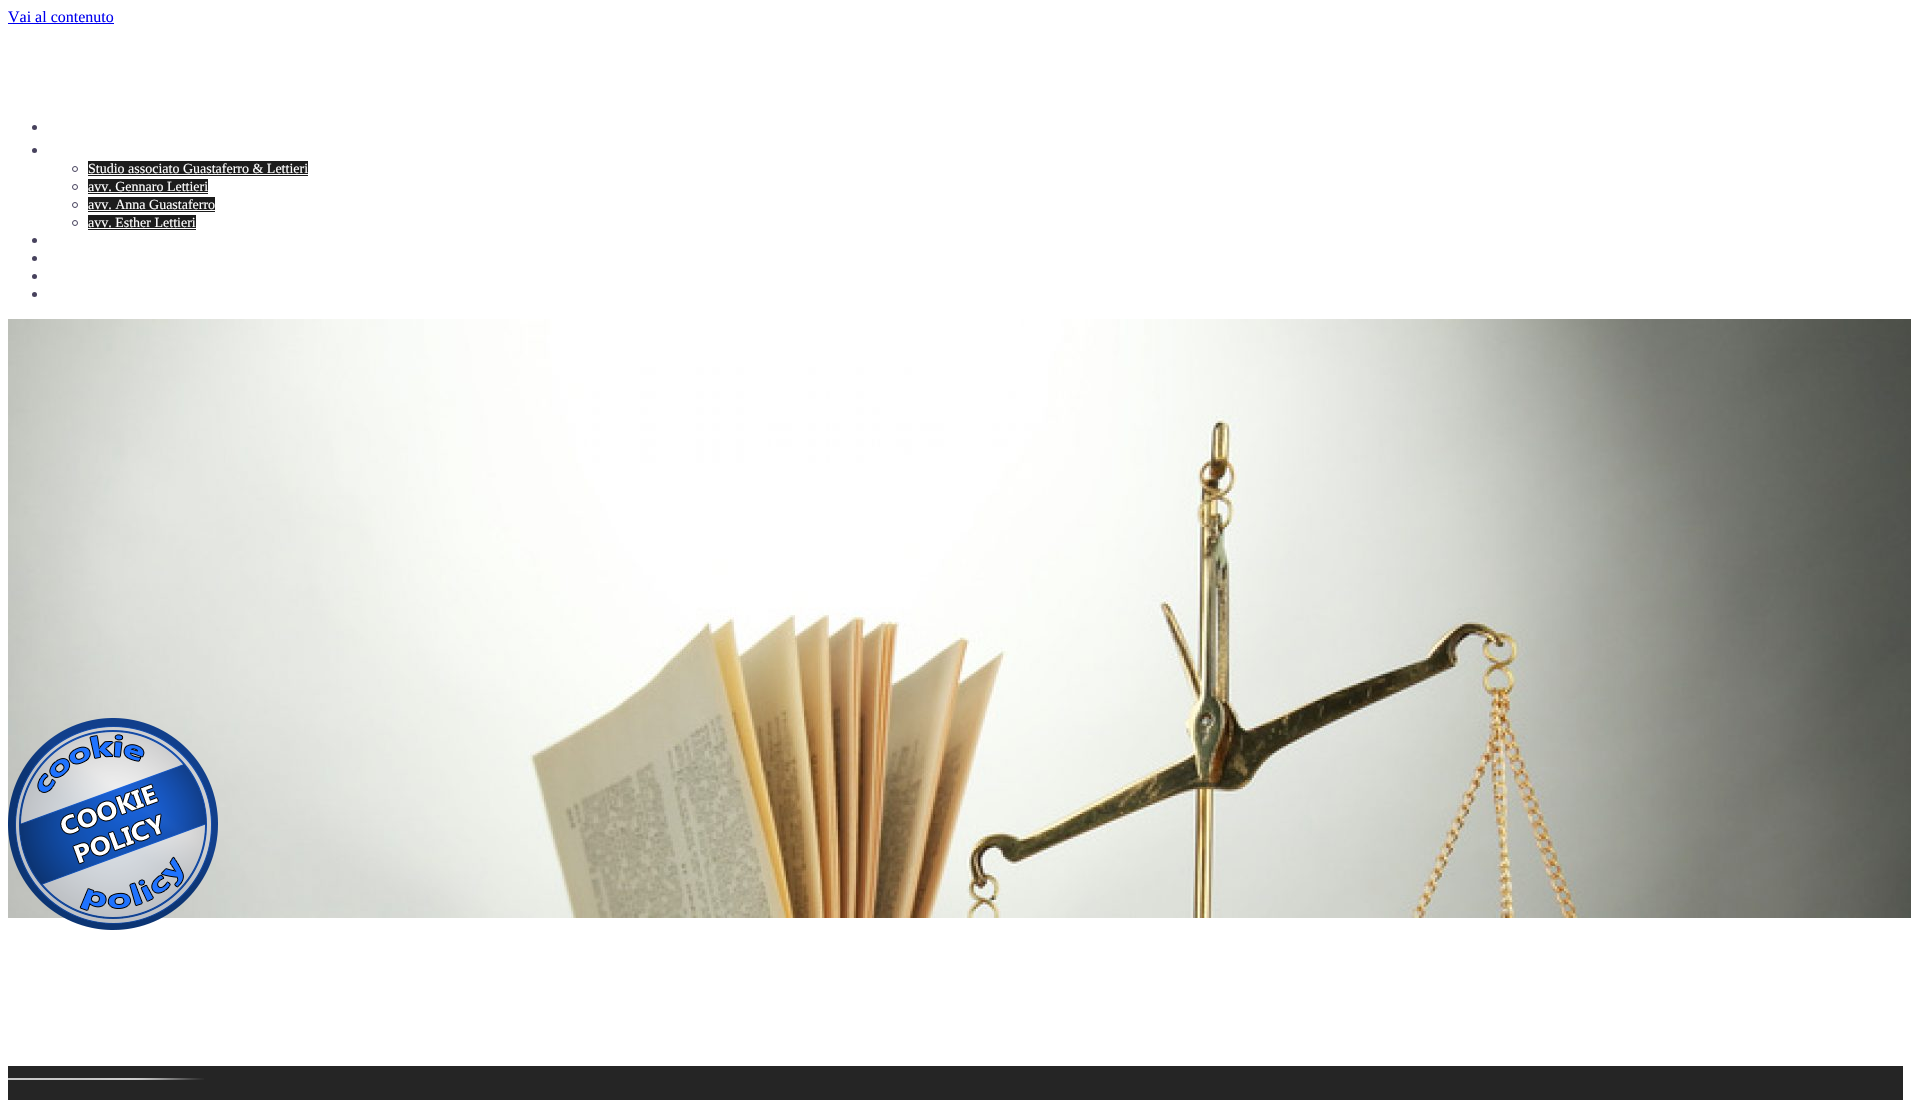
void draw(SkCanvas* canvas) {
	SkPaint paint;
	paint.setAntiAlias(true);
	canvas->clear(0xffffffff);
	SkFont f1(fontMgr->matchFamilyStyle("Liberation Serif", SkFontStyle::Normal()), 16);
	f1.setSubpixel(true);
	paint.setColor(0xff0000ee);
	canvas->drawString("Vai al contenuto", 8, 22, f1, paint);
	canvas->drawRect(SkRect::MakeXYWH(8, 23, 106, 1), paint);
	paint.setColor(0xff47425d);
	canvas->drawCircle(34.5, 127.5, 2.5, paint);
	canvas->drawCircle(34.5, 150.5, 2.5, paint);
	paint.setStroke(true);
	paint.setStrokeWidth(1);
	canvas->drawCircle(75, 169, 2.5, paint);
	paint.setStroke(false);
	paint.setColor(0xff1c1c1c);
	canvas->drawRect(SkRect::MakeXYWH(88, 161, 220, 15), paint);
	SkFont f2(fontMgr->matchFamilyStyle("Liberation Serif", SkFontStyle::Normal()), 14);
	f2.setSubpixel(true);
	paint.setColor(0xffffffff);
	canvas->drawString("Studio associato Guastaferro & Lettieri", 88, 173, f2, paint);
	canvas->drawRect(SkRect::MakeXYWH(88, 174, 220, 1), paint);
	paint.setStroke(true);
	paint.setColor(0xff47425d);
	canvas->drawCircle(75, 187, 2.5, paint);
	paint.setStroke(false);
	paint.setColor(0xff1c1c1c);
	canvas->drawRect(SkRect::MakeXYWH(88, 179, 120, 15), paint);
	paint.setColor(0xffffffff);
	canvas->drawString("avv. Gennaro Lettieri", 88, 191, f2, paint);
	canvas->drawRect(SkRect::MakeXYWH(88, 192, 120, 1), paint);
	paint.setStroke(true);
	paint.setColor(0xff47425d);
	canvas->drawCircle(75, 205, 2.5, paint);
	paint.setStroke(false);
	paint.setColor(0xff1c1c1c);
	canvas->drawRect(SkRect::MakeXYWH(88, 197, 127, 15), paint);
	paint.setColor(0xffffffff);
	canvas->drawString("avv. Anna Guastaferro", 88, 209, f2, paint);
	canvas->drawRect(SkRect::MakeXYWH(88, 210, 127, 1), paint);
	paint.setStroke(true);
	paint.setColor(0xff47425d);
	canvas->drawCircle(75, 223, 2.5, paint);
	paint.setStroke(false);
	paint.setColor(0xff1c1c1c);
	canvas->drawRect(SkRect::MakeXYWH(88, 215, 108, 15), paint);
	paint.setColor(0xffffffff);
	canvas->drawString("avv. Esther Lettieri", 88, 227, f2, paint);
	canvas->drawRect(SkRect::MakeXYWH(88, 228, 108, 1), paint);
	paint.setColor(0xff47425d);
	canvas->drawCircle(34.5, 240.5, 2.5, paint);
	canvas->drawCircle(34.5, 258.5, 2.5, paint);
	canvas->drawCircle(34.5, 276.5, 2.5, paint);
	canvas->drawCircle(34.5, 294.5, 2.5, paint);
	canvas->drawImageRect(SkImages::DeferredFromEncodedData(SkData::MakeFromFileName("img1.png")), SkRect::MakeXYWH(8, 319, 1903, 599), SkSamplingOptions());
	canvas->drawImageRect(SkImages::DeferredFromEncodedData(SkData::MakeFromFileName("img2.png")), SkRect::MakeXYWH(8, 718, 210, 212), SkSamplingOptions());
	paint.setColor(0xff252525);
	canvas->drawRect(SkRect::MakeXYWH(8, 1066, 1895, 34), paint);
	canvas->drawImageRect(SkImages::DeferredFromEncodedData(SkData::MakeFromFileName("img3.png")), SkRect::MakeXYWH(8, 1078, 196, 2), SkSamplingOptions());
}
